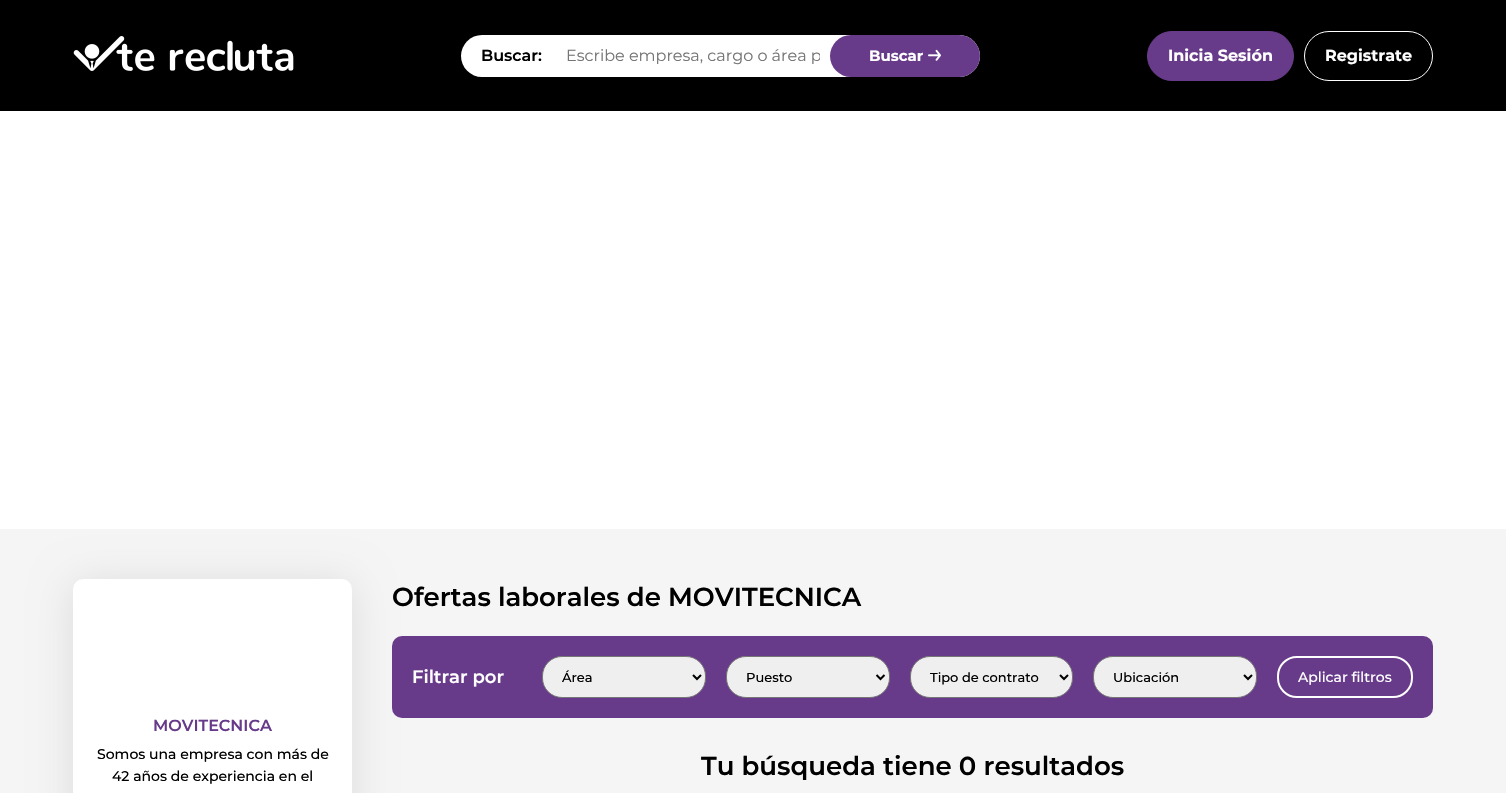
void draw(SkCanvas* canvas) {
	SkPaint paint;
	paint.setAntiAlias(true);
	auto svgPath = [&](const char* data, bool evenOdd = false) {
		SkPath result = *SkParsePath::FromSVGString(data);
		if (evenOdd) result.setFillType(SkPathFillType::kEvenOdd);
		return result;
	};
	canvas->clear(0xffffffff);
	paint.setColor(0xff000000);
	canvas->drawRect(SkRect::MakeXYWH(0, 0, 1506, 111), paint);
	canvas->drawImageRect(SkImages::DeferredFromEncodedData(SkData::MakeFromFileName("img1.png")), SkRect::MakeXYWH(73, 36, 221, 35), SkSamplingOptions());
	paint.setColor(0xffffffff);
	canvas->drawRoundRect(SkRect::MakeXYWH(461, 35, 519, 42), 21, 21, paint);
	SkFont f1(fontMgr->matchFamilyStyle("Montserrat", SkFontStyle(600, SkFontStyle::kNormal_Width, SkFontStyle::kUpright_Slant)), 16);
	f1.setSubpixel(true);
	paint.setColor(0xff000000);
	canvas->drawString("Buscar:", 481, 61, f1, paint);
	canvas->save();
	canvas->clipRect(SkRect::MakeXYWH(566, 46, 254, 19));
	SkFont f2(fontMgr->matchFamilyStyle("Montserrat", SkFontStyle::Normal()), 16);
	f2.setSubpixel(true);
	paint.setColor(0xff757575);
	canvas->drawString("Escribe empresa, cargo o área p", 566, 61, f2, paint);
	canvas->restore();
	paint.setColor(0xff683a8a);
	canvas->drawRoundRect(SkRect::MakeXYWH(830, 35, 150, 42), 21, 21, paint);
	SkFont f3(fontMgr->matchFamilyStyle("Montserrat", SkFontStyle::Bold()), 15);
	f3.setSubpixel(true);
	paint.setColor(0xffffffff);
	canvas->drawString("Buscar", 869, 61, f3, paint);
	canvas->drawImageRect(SkImages::DeferredFromEncodedData(SkData::MakeFromFileName("img2.png")), SkRect::MakeXYWH(928, 49, 13, 12), SkSamplingOptions());
	paint.setColor(0xff683a8a);
	canvas->drawRoundRect(SkRect::MakeXYWH(1147.5, 31.5, 146, 49), 24.5, 24.5, paint);
	paint.setStroke(true);
	paint.setStrokeWidth(1);
	canvas->drawRoundRect(SkRect::MakeXYWH(1147.5, 31.5, 146, 49), 24.5, 24.5, paint);
	SkFont f4(fontMgr->matchFamilyStyle("Montserrat", SkFontStyle::Bold()), 16);
	f4.setSubpixel(true);
	paint.setStroke(false);
	paint.setColor(0xffffffff);
	canvas->drawString("Inicia Sesión", 1168, 61, f4, paint);
	paint.setStroke(true);
	canvas->drawRoundRect(SkRect::MakeXYWH(1304.5, 31.5, 128, 49), 24.5, 24.5, paint);
	paint.setStroke(false);
	canvas->drawString("Registrate", 1325, 61, f4, paint);
	paint.setColor(0xfff5f5f5);
	canvas->drawRect(SkRect::MakeXYWH(0, 529, 1506, 264), paint);
	paint.setColor(0xff683a8a);
	canvas->drawRoundRect(SkRect::MakeXYWH(392, 636, 1041, 82), 10, 10, paint);
	paint.setColor(0x1a000000);
	paint.setMaskFilter(SkMaskFilter::MakeBlur(kNormal_SkBlurStyle, 20));
	canvas->drawRoundRect(SkRect::MakeXYWH(73, 583, 279, 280), 10, 10, paint);
	paint.setMaskFilter(nullptr);
	paint.setColor(0xffffffff);
	canvas->drawRoundRect(SkRect::MakeXYWH(73, 579, 279, 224), 10, 10, paint);
	paint.setColor(0xff683a8a);
	canvas->drawString("MOVITECNICA", 153, 731, f1, paint);
	SkFont f5(fontMgr->matchFamilyStyle("Montserrat", SkFontStyle(500, SkFontStyle::kNormal_Width, SkFontStyle::kUpright_Slant)), 14);
	f5.setSubpixel(true);
	paint.setColor(0xff000000);
	canvas->drawString("Somos una empresa con más de", 97, 759, f5, paint);
	canvas->drawString("42 años de experiencia en el", 112, 781, f5, paint);
	SkFont f6(fontMgr->matchFamilyStyle("Montserrat", SkFontStyle(600, SkFontStyle::kNormal_Width, SkFontStyle::kUpright_Slant)), 26);
	f6.setSubpixel(true);
	canvas->drawString("Ofertas laborales de MOVITECNICA", 392, 606, f6, paint);
	SkFont f7(fontMgr->matchFamilyStyle("Montserrat", SkFontStyle(600, SkFontStyle::kNormal_Width, SkFontStyle::kUpright_Slant)), 18);
	f7.setSubpixel(true);
	paint.setColor(0xffffffff);
	canvas->drawString("Filtrar por", 412, 683, f7, paint);
	paint.setColor(0xffefefef);
	canvas->drawRoundRect(SkRect::MakeXYWH(542.5, 656.5, 163, 41), 19.5, 19.5, paint);
	paint.setStroke(true);
	paint.setColor(0xff767676);
	canvas->drawRoundRect(SkRect::MakeXYWH(542.5, 656.5, 163, 41), 19.5, 19.5, paint);
	paint.setStrokeWidth(2);
	paint.setColor(0xff000000);
	canvas->drawPath(svgPath("M693 675L697 679L701 675"), paint);
	SkFont f8(fontMgr->matchFamilyStyle("Montserrat", SkFontStyle(500, SkFontStyle::kNormal_Width, SkFontStyle::kUpright_Slant)), 13);
	f8.setSubpixel(true);
	paint.setStroke(false);
	canvas->drawString("Área", 562, 682, f8, paint);
	paint.setColor(0xffefefef);
	canvas->drawRoundRect(SkRect::MakeXYWH(726.5, 656.5, 163, 41), 19.5, 19.5, paint);
	paint.setStroke(true);
	paint.setStrokeWidth(1);
	paint.setColor(0xff767676);
	canvas->drawRoundRect(SkRect::MakeXYWH(726.5, 656.5, 163, 41), 19.5, 19.5, paint);
	paint.setStrokeWidth(2);
	paint.setColor(0xff000000);
	canvas->drawPath(svgPath("M876.5 675L880.5 679L884.5 675"), paint);
	paint.setStroke(false);
	canvas->drawString("Puesto", 746, 682, f8, paint);
	paint.setColor(0xffefefef);
	canvas->drawRoundRect(SkRect::MakeXYWH(910.5, 656.5, 162, 41), 19.5, 19.5, paint);
	paint.setStroke(true);
	paint.setStrokeWidth(1);
	paint.setColor(0xff767676);
	canvas->drawRoundRect(SkRect::MakeXYWH(910.5, 656.5, 162, 41), 19.5, 19.5, paint);
	paint.setStrokeWidth(2);
	paint.setColor(0xff000000);
	canvas->drawPath(svgPath("M1060 675L1064 679L1068 675"), paint);
	paint.setStroke(false);
	canvas->drawString("Tipo de contrato", 930, 682, f8, paint);
	paint.setColor(0xffefefef);
	canvas->drawRoundRect(SkRect::MakeXYWH(1093.5, 656.5, 163, 41), 19.5, 19.5, paint);
	paint.setStroke(true);
	paint.setStrokeWidth(1);
	paint.setColor(0xff767676);
	canvas->drawRoundRect(SkRect::MakeXYWH(1093.5, 656.5, 163, 41), 19.5, 19.5, paint);
	paint.setStrokeWidth(2);
	paint.setColor(0xff000000);
	canvas->drawPath(svgPath("M1244 675L1248 679L1252 675"), paint);
	paint.setStroke(false);
	canvas->drawString("Ubicación", 1113, 682, f8, paint);
	paint.setStroke(true);
	paint.setColor(0xffffffff);
	canvas->drawRoundRect(SkRect::MakeXYWH(1278, 657, 134, 40), 19, 19, paint);
	paint.setStroke(false);
	canvas->drawString("Aplicar filtros", 1298, 682, f5, paint);
	paint.setColor(0xff000000);
	canvas->drawString("Tu búsqueda tiene 0 resultados", 701, 775, f6, paint);
}
